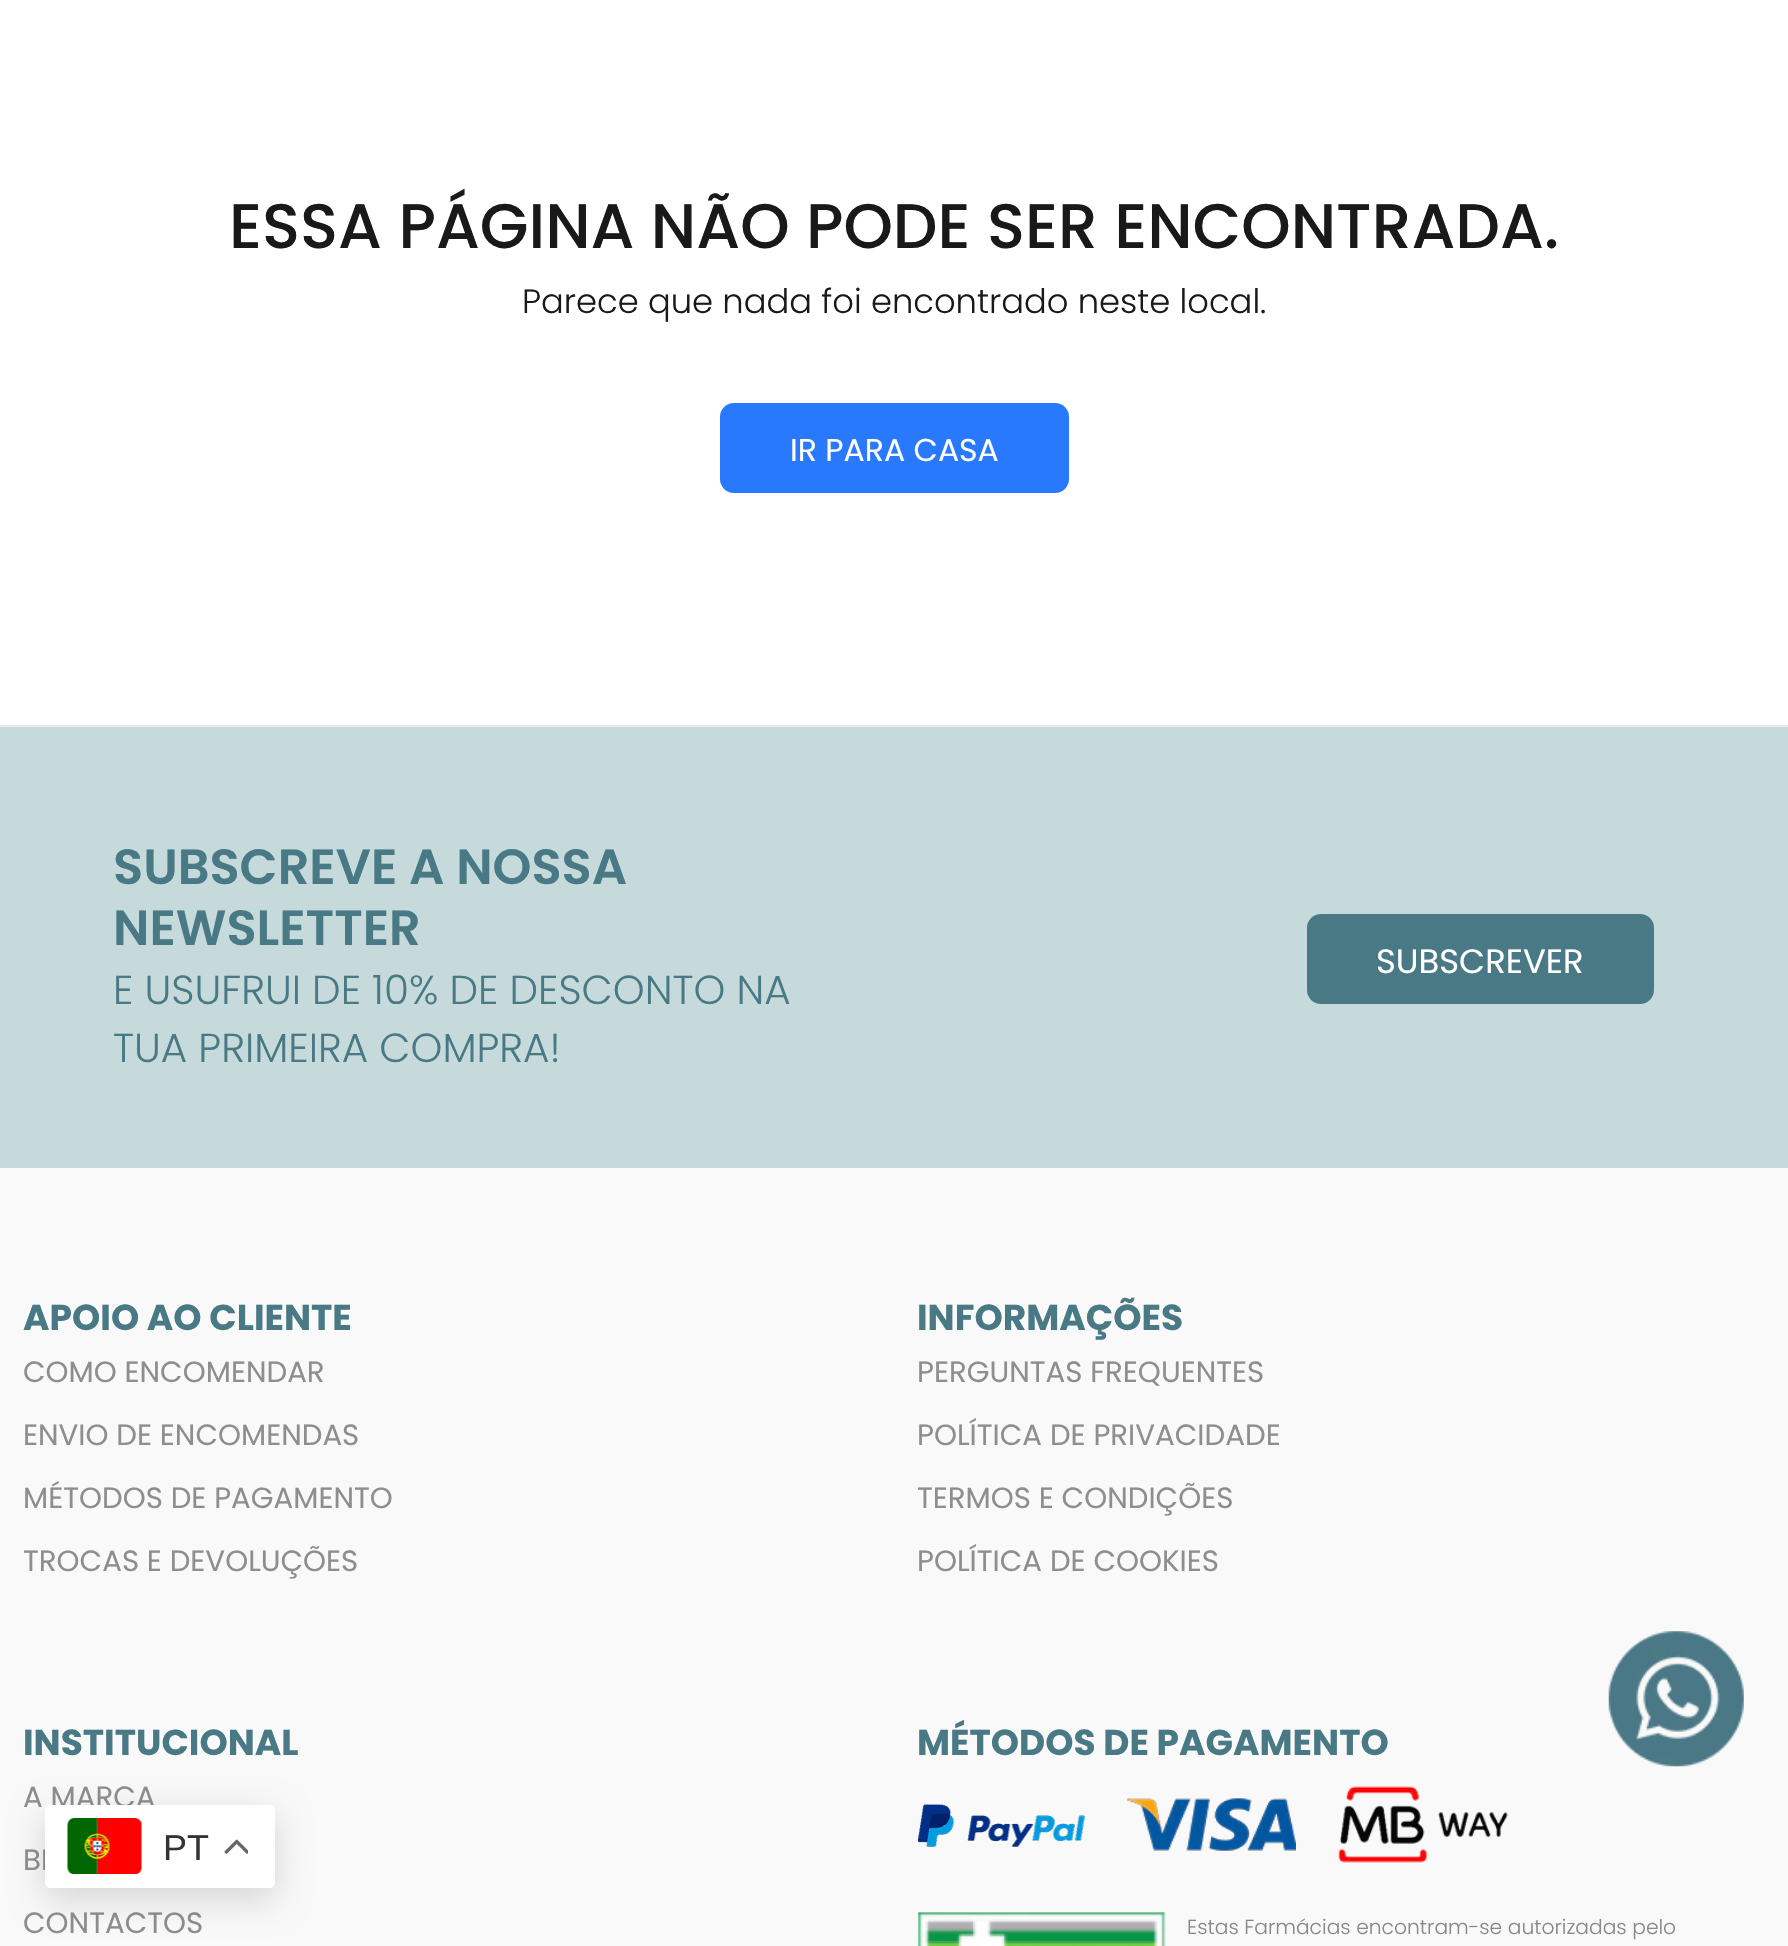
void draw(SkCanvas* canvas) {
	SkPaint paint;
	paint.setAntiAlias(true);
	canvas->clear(0xffffffff);
	SkFont f1(fontMgr->matchFamilyStyle("Poppins", SkFontStyle(500, SkFontStyle::kNormal_Width, SkFontStyle::kUpright_Slant)), 63);
	f1.setSubpixel(true);
	paint.setColor(0xff191919);
	canvas->drawString("ESSA PÁGINA NÃO PODE SER ENCONTRADA.", 229, 248, f1, paint);
	SkFont f2(fontMgr->matchFamilyStyle("Poppins", SkFontStyle(300, SkFontStyle::kNormal_Width, SkFontStyle::kUpright_Slant)), 33.75);
	f2.setSubpixel(true);
	canvas->drawString("Parece que nada foi encontrado neste local.", 522, 313, f2, paint);
	paint.setColor(0xff2879fe);
	canvas->drawRoundRect(SkRect::MakeXYWH(720, 403, 349, 90), 14, 14, paint);
	SkFont f3(fontMgr->matchFamilyStyle("Poppins", SkFontStyle::Normal()), 31.5);
	f3.setSubpixel(true);
	paint.setColor(0xffffffff);
	canvas->drawString("IR PARA CASA", 790, 461, f3, paint);
	paint.setColor(0xffe9e7e7);
	canvas->drawRect(SkRect::MakeXYWH(0, 725, 1788, 2), paint);
	paint.setColor(0xffc6dadb);
	canvas->drawRect(SkRect::MakeXYWH(0, 727, 1788, 441), paint);
	SkFont f4(fontMgr->matchFamilyStyle("Poppins", SkFontStyle(600, SkFontStyle::kNormal_Width, SkFontStyle::kUpright_Slant)), 49.5);
	f4.setSubpixel(true);
	paint.setColor(0xff497985);
	canvas->drawString("SUBSCREVE A NOSSA", 113, 884, f4, paint);
	canvas->drawString("NEWSLETTER", 113, 945, f4, paint);
	SkFont f5(fontMgr->matchFamilyStyle("Poppins", SkFontStyle(300, SkFontStyle::kNormal_Width, SkFontStyle::kUpright_Slant)), 40.5);
	f5.setSubpixel(true);
	canvas->drawString("E USUFRUI DE 10% DE DESCONTO NA", 113, 1004, f5, paint);
	canvas->drawString("TUA PRIMEIRA COMPRA!", 113, 1062, f5, paint);
	canvas->drawRoundRect(SkRect::MakeXYWH(1307, 914, 347, 90), 14, 14, paint);
	SkFont f6(fontMgr->matchFamilyStyle("Poppins", SkFontStyle::Normal()), 33.75);
	f6.setSubpixel(true);
	paint.setColor(0xffffffff);
	canvas->drawString("SUBSCREVER", 1376, 973, f6, paint);
	paint.setColor(0xfff9f9f9);
	canvas->drawRect(SkRect::MakeXYWH(0, 1168, 1788, 778), paint);
	SkFont f7(fontMgr->matchFamilyStyle("Poppins", SkFontStyle::Bold()), 36);
	f7.setSubpixel(true);
	paint.setColor(0xff497985);
	canvas->drawString("APOIO AO CLIENTE", 23, 1330, f7, paint);
	SkFont f8(fontMgr->matchFamilyStyle("Poppins", SkFontStyle::Normal()), 29.25);
	f8.setSubpixel(true);
	paint.setColor(0xff8f8d8d);
	canvas->drawString("COMO ENCOMENDAR", 23, 1382, f8, paint);
	canvas->drawString("ENVIO DE ENCOMENDAS", 23, 1445, f8, paint);
	canvas->drawString("MÉTODOS DE PAGAMENTO", 23, 1508, f8, paint);
	canvas->drawString("TROCAS E DEVOLUÇÕES", 23, 1571, f8, paint);
	paint.setColor(0xff497985);
	canvas->drawString("INFORMAÇÕES", 917, 1330, f7, paint);
	paint.setColor(0xff8f8d8d);
	canvas->drawString("PERGUNTAS FREQUENTES", 917, 1382, f8, paint);
	canvas->drawString("POLÍTICA DE PRIVACIDADE", 917, 1445, f8, paint);
	canvas->drawString("TERMOS E CONDIÇÕES", 917, 1508, f8, paint);
	canvas->drawString("POLÍTICA DE COOKIES", 917, 1571, f8, paint);
	paint.setColor(0xff497985);
	canvas->drawString("INSTITUCIONAL", 23, 1755, f7, paint);
	paint.setColor(0xff8f8d8d);
	canvas->drawString("A MARCA", 23, 1807, f8, paint);
	canvas->drawString("BL", 23, 1870, f8, paint);
	canvas->drawString("CONTACTOS", 23, 1933, f8, paint);
	paint.setColor(0xff497985);
	canvas->drawString("MÉTODOS DE PAGAMENTO", 917, 1755, f7, paint);
	canvas->drawImageRect(SkImages::DeferredFromEncodedData(SkData::MakeFromFileName("img1.png")), SkRect::MakeXYWH(918, 1804, 167, 43), SkSamplingOptions());
	canvas->drawImageRect(SkImages::DeferredFromEncodedData(SkData::MakeFromFileName("img2.png")), SkRect::MakeXYWH(1127, 1798, 169, 53), SkSamplingOptions());
	canvas->drawImageRect(SkImages::DeferredFromEncodedData(SkData::MakeFromFileName("img3.png")), SkRect::MakeXYWH(1338, 1786, 170, 77), SkSamplingOptions());
	canvas->drawImageRect(SkImages::DeferredFromEncodedData(SkData::MakeFromFileName("img4.png")), SkRect::MakeXYWH(918, 1912, 248, 34), SkSamplingOptions());
	SkFont f9(fontMgr->matchFamilyStyle("Poppins", SkFontStyle(300, SkFontStyle::kNormal_Width, SkFontStyle::kUpright_Slant)), 20.25);
	f9.setSubpixel(true);
	paint.setColor(0xff888888);
	canvas->drawString("Estas Farmácias encontram-se autorizadas pelo", 1187, 1934, f9, paint);
	canvas->drawImageRect(SkImages::DeferredFromEncodedData(SkData::MakeFromFileName("img5.png")), SkRect::MakeXYWH(1608, 1631, 136, 136), SkSamplingOptions());
	paint.setColor(0x26000000);
	paint.setMaskFilter(SkMaskFilter::MakeBlur(kNormal_SkBlurStyle, 17));
	canvas->drawRoundRect(SkRect::MakeXYWH(45, 1816, 230, 83), 5, 5, paint);
	paint.setMaskFilter(nullptr);
	paint.setColor(0xffffffff);
	canvas->drawRoundRect(SkRect::MakeXYWH(45, 1805, 230, 83), 5, 5, paint);
	canvas->drawImageRect(SkImages::DeferredFromEncodedData(SkData::MakeFromFileName("img6.png")), SkRect::MakeXYWH(67, 1818, 75, 56), SkSamplingOptions());
	SkFont f10(fontMgr->matchFamilyStyle("Liberation Sans", SkFontStyle::Normal()), 36);
	f10.setSubpixel(true);
	paint.setColor(0xff333333);
	canvas->drawString("PT", 163, 1860, f10, paint);
	canvas->drawImageRect(SkImages::DeferredFromEncodedData(SkData::MakeFromFileName("img7.png")), SkRect::MakeXYWH(224, 1839, 24, 15), SkSamplingOptions());
}
